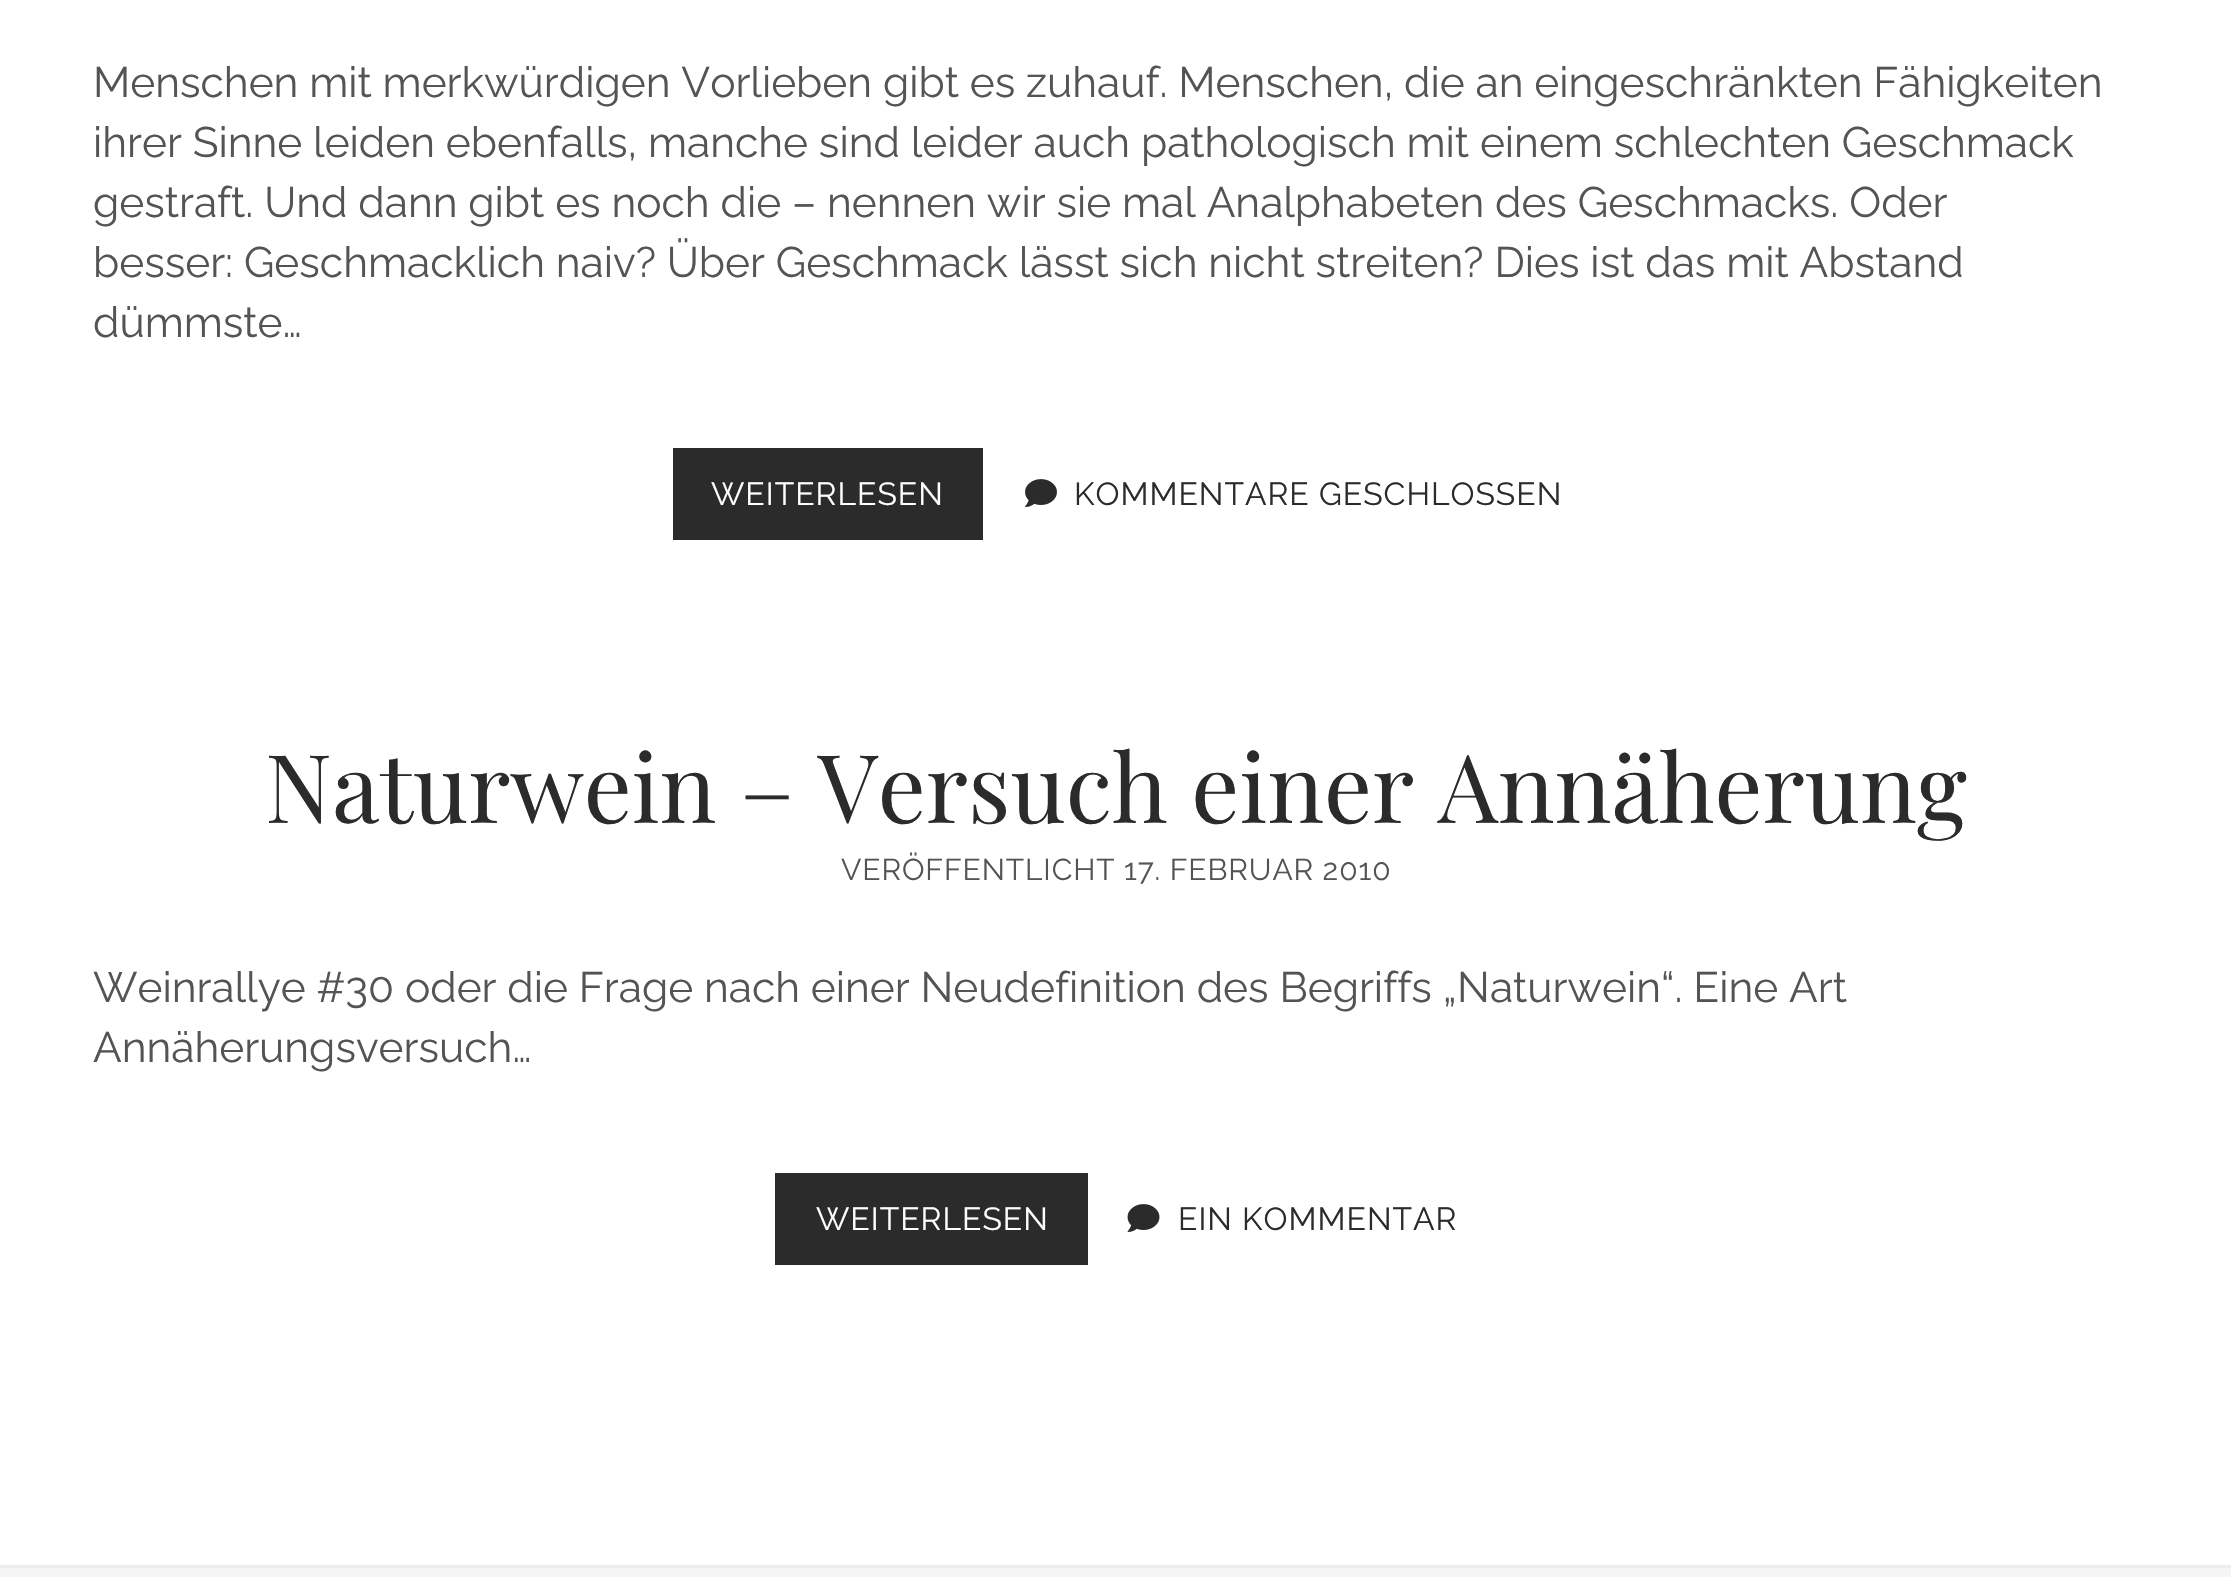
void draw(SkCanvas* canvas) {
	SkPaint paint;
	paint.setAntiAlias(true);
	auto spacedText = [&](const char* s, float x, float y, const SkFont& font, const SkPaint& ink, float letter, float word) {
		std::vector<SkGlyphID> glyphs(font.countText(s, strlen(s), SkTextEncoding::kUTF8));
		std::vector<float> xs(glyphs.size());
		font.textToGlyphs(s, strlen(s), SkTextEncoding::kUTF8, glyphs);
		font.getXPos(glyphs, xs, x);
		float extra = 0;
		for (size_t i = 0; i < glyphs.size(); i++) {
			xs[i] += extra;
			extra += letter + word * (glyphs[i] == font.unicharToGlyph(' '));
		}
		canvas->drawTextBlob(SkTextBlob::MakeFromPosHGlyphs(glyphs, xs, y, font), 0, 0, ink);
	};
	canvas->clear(0xffffffff);
	SkFont f1(fontMgr->matchFamilyStyle("Raleway", SkFontStyle::Normal()), 42.5);
	f1.setSubpixel(true);
	paint.setColor(0xff545454);
	canvas->drawString("Menschen mit merkwürdigen Vorlieben gibt es zuhauf. Menschen, die an eingeschränkten Fähigkeiten", 93, 97, f1, paint);
	canvas->drawString("ihrer Sinne leiden ebenfalls, manche sind leider auch pathologisch mit einem schlechten Geschmack", 93, 157, f1, paint);
	canvas->drawString("gestraft. Und dann gibt es noch die – nennen wir sie mal Analphabeten des Geschmacks. Oder", 93, 217, f1, paint);
	canvas->drawString("besser: Geschmacklich naiv? Über Geschmack lässt sich nicht streiten? Dies ist das mit Abstand", 93, 277, f1, paint);
	canvas->drawString("dümmste…", 93, 337, f1, paint);
	paint.setColor(0xff2b2b2b);
	canvas->drawRect(SkRect::MakeXYWH(673, 448, 310, 92), paint);
	SkFont f2(fontMgr->matchFamilyStyle("Raleway", SkFontStyle::Normal()), 31.9);
	f2.setSubpixel(true);
	paint.setColor(0xffffffff);
	spacedText("WEITERLESEN", 711, 505, f2, paint, 1, 0);
	canvas->drawImageRect(SkImages::DeferredFromEncodedData(SkData::MakeFromFileName("img1.png")), SkRect::MakeXYWH(1025, 479, 32, 28), SkSamplingOptions());
	paint.setColor(0xff2b2b2b);
	spacedText("KOMMENTARE GESCHLOSSEN", 1074, 505, f2, paint, 1, 0);
	SkFont f3(fontMgr->matchFamilyStyle("Playfair Display", SkFontStyle::Normal()), 95);
	f3.setSubpixel(true);
	canvas->drawString("Naturwein – Versuch einer Annäherung", 265, 823, f3, paint);
	SkFont f4(fontMgr->matchFamilyStyle("Raleway", SkFontStyle::Normal()), 30);
	f4.setSubpixel(true);
	paint.setColor(0xff545454);
	spacedText("VERÖFFENTLICHT 17. FEBRUAR 2010", 841, 880, f4, paint, 0.9, 0);
	canvas->drawString("Weinrallye #30 oder die Frage nach einer Neudefinition des Begriffs „Naturwein“. Eine Art", 93, 1002, f1, paint);
	canvas->drawString("Annäherungsversuch…", 93, 1062, f1, paint);
	paint.setColor(0xff2b2b2b);
	canvas->drawRect(SkRect::MakeXYWH(775, 1173, 313, 92), paint);
	paint.setColor(0xffffffff);
	spacedText("WEITERLESEN", 816, 1230, f2, paint, 1, 0);
	canvas->drawImageRect(SkImages::DeferredFromEncodedData(SkData::MakeFromFileName("img2.png")), SkRect::MakeXYWH(1127, 1204, 33, 28), SkSamplingOptions());
	paint.setColor(0xff2b2b2b);
	spacedText("EIN KOMMENTAR", 1178, 1230, f2, paint, 1, 0);
	paint.setColor(0xfff5f5f5);
	canvas->drawRect(SkRect::MakeXYWH(0, 1568, 2231, 9), paint);
	paint.setColor(0xffededed);
	canvas->drawRect(SkRect::MakeXYWH(0, 1565, 2231, 3), paint);
}
